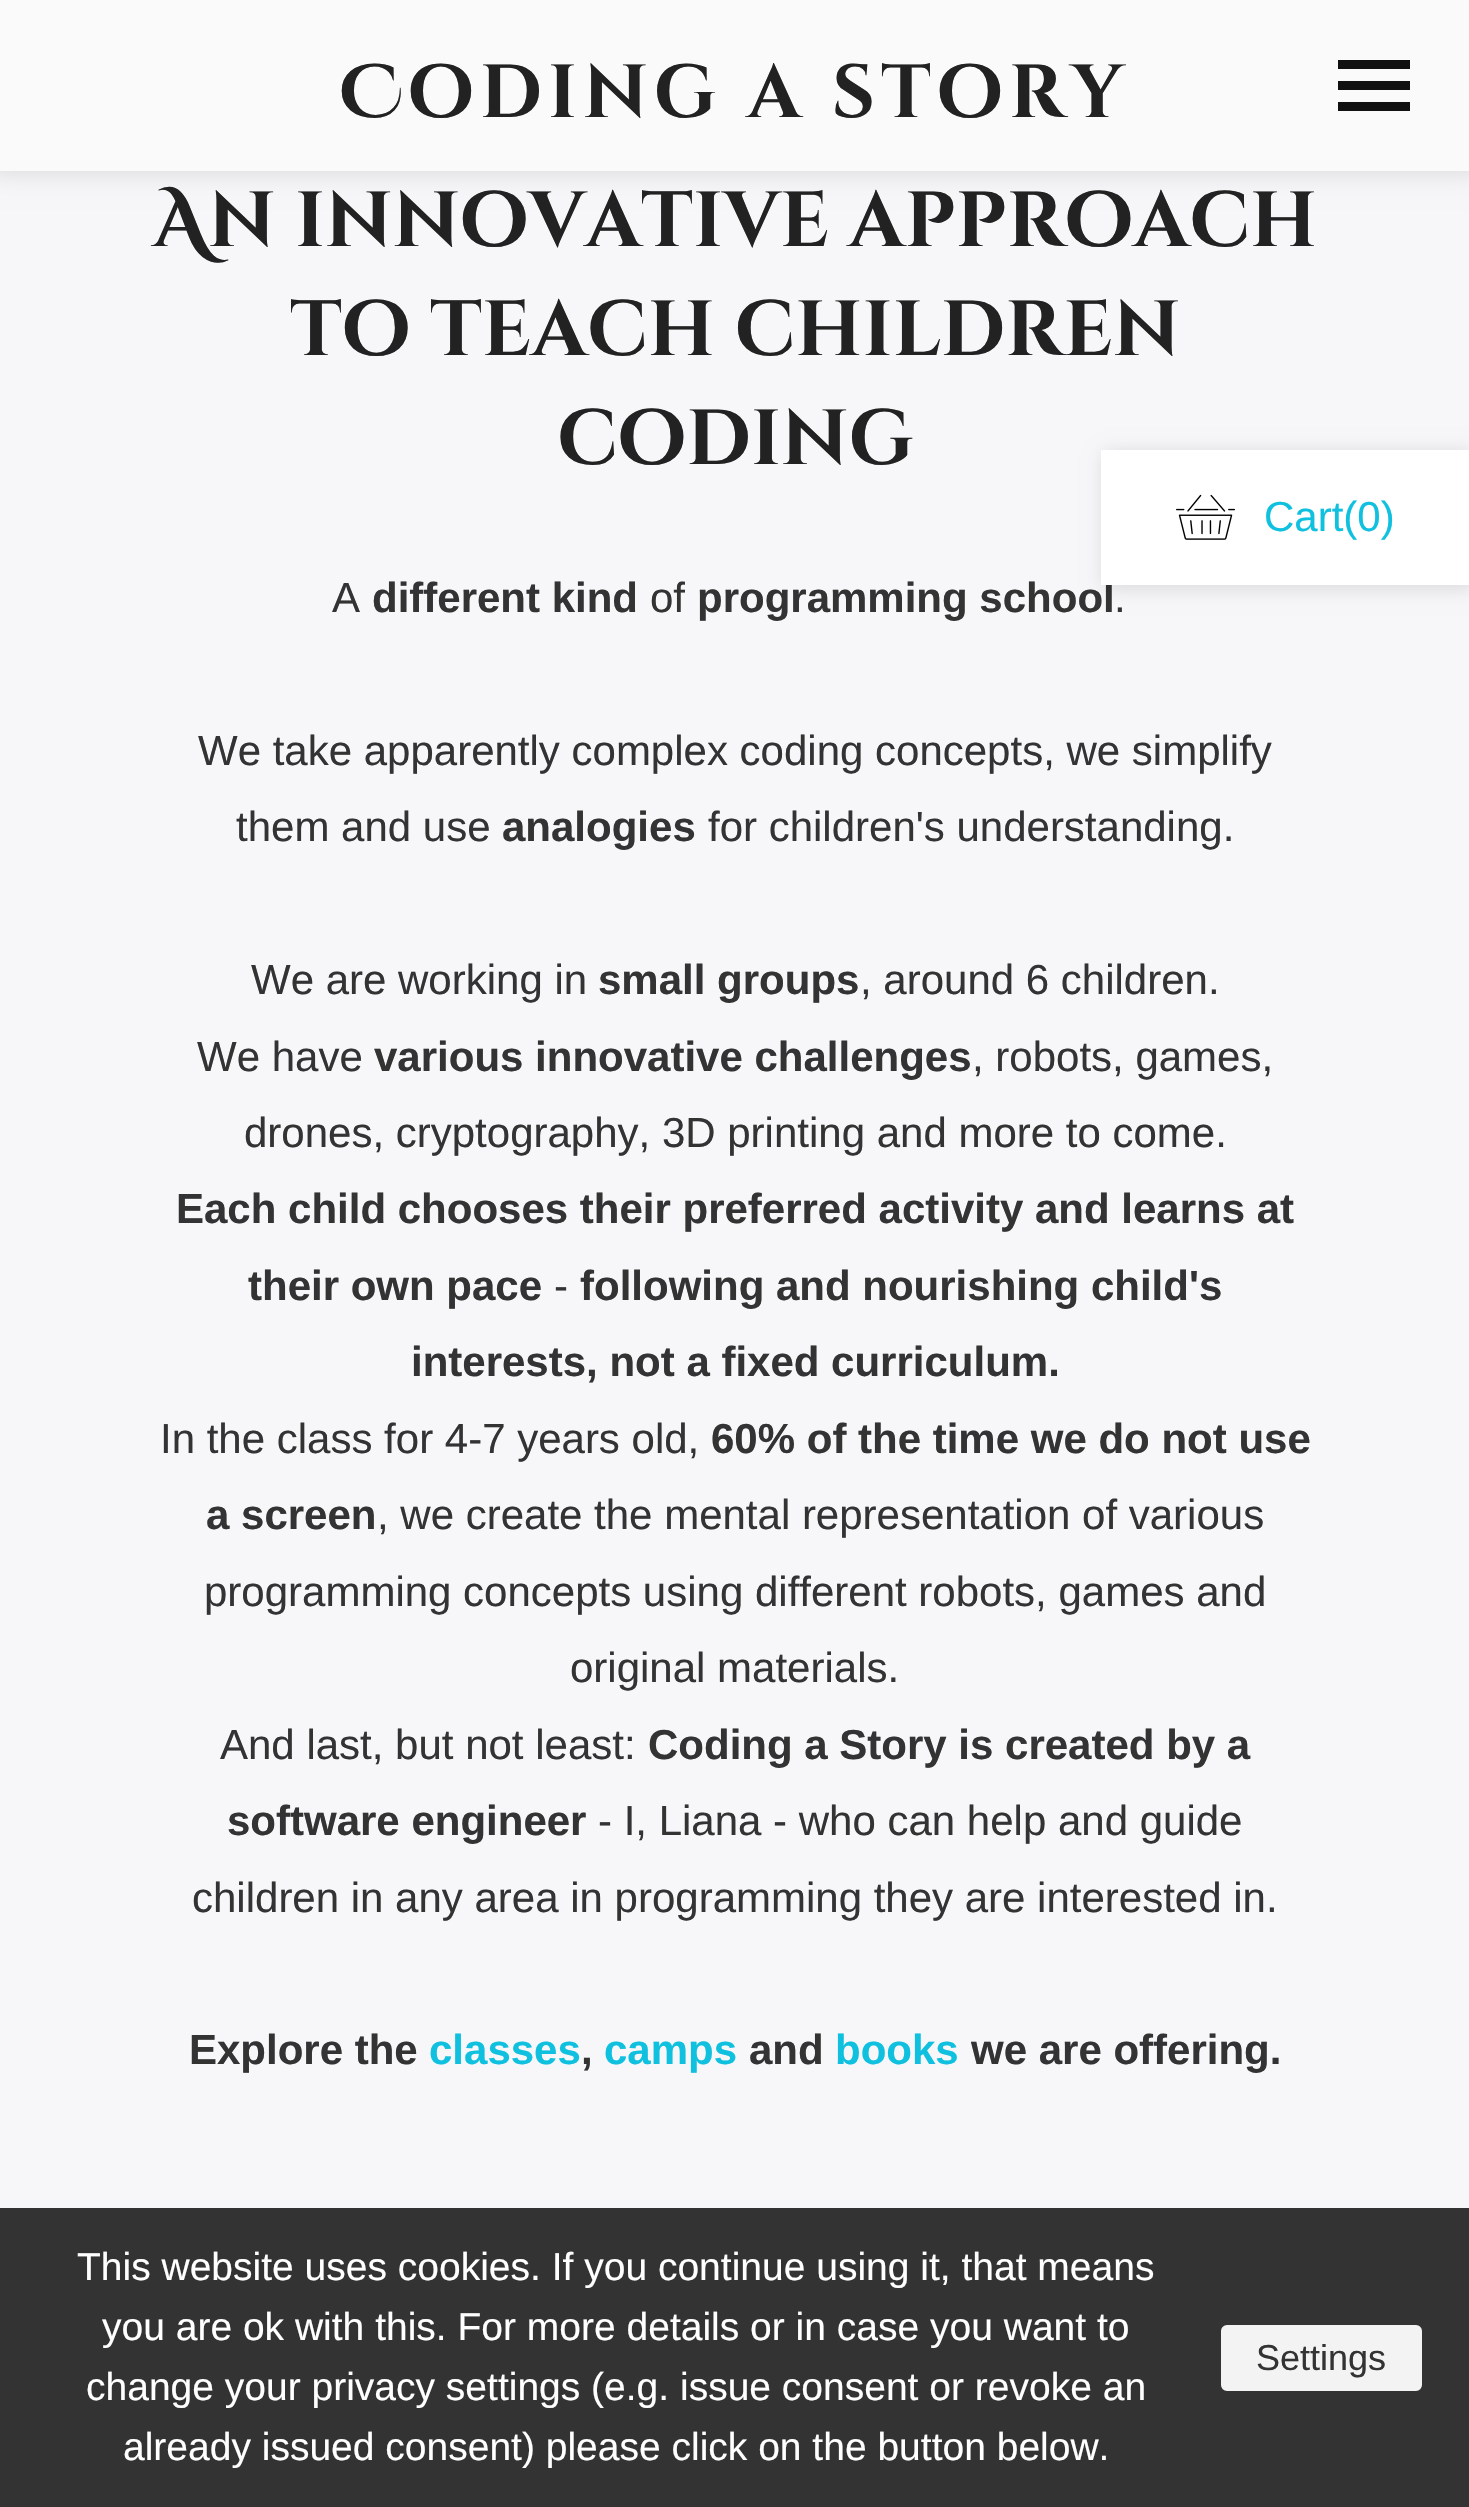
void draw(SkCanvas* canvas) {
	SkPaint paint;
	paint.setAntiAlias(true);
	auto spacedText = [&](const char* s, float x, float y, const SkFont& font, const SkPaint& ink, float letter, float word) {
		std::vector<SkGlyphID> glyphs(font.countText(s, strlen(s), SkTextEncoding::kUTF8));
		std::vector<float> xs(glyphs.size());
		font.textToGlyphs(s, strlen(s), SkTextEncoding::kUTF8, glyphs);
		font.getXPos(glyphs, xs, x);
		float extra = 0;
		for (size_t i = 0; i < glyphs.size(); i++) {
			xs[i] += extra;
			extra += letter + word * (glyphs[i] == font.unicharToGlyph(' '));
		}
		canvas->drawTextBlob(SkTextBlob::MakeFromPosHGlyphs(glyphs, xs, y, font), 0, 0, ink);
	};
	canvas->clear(0xfff7f7fa);
	paint.setColor(0x33000000);
	paint.setMaskFilter(SkMaskFilter::MakeBlur(kNormal_SkBlurStyle, 15));
	canvas->drawRect(SkRect::MakeXYWH(-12, -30, 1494, 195), paint);
	paint.setMaskFilter(nullptr);
	paint.setColor(0xfffafafa);
	canvas->drawRect(SkRect::MakeXYWH(0, 0, 1469, 171), paint);
	SkFont f1(fontMgr->matchFamilyStyle("Cinzel Decorative", SkFontStyle::Bold()), 75);
	f1.setSubpixel(true);
	paint.setColor(0xff222222);
	spacedText("Coding a story", 340, 117, f1, paint, 6, 0);
	paint.setColor(0xff111111);
	canvas->drawRect(SkRect::MakeXYWH(1338, 60, 72, 9), paint);
	canvas->drawRect(SkRect::MakeXYWH(1338, 81, 72, 9), paint);
	canvas->drawRect(SkRect::MakeXYWH(1338, 102, 72, 9), paint);
	SkFont f2(fontMgr->matchFamilyStyle("Cinzel Decorative", SkFontStyle::Bold()), 78);
	f2.setSubpixel(true);
	paint.setColor(0xff222222);
	canvas->drawString("An innovative approach", 153, 246, f2, paint);
	canvas->drawString("to teach children", 290, 355, f2, paint);
	canvas->drawString("coding", 557, 464, f2, paint);
	SkFont f3(fontMgr->matchFamilyStyle("Liberation Sans", SkFontStyle::Normal()), 42);
	f3.setSubpixel(true);
	paint.setColor(0xff333333);
	canvas->drawString("A", 332, 612, f3, paint);
	SkFont f4(fontMgr->matchFamilyStyle("Liberation Sans", SkFontStyle::Bold()), 42);
	f4.setSubpixel(true);
	canvas->drawString("different kind", 372, 612, f4, paint);
	canvas->drawString("of", 650, 612, f3, paint);
	canvas->drawString("programming school", 697, 612, f4, paint);
	canvas->drawString(".", 1114, 612, f3, paint);
	canvas->drawString("We take apparently complex coding concepts, we simplify", 198, 765, f3, paint);
	canvas->drawString("them and use", 236, 841, f3, paint);
	canvas->drawString("analogies", 502, 841, f4, paint);
	canvas->drawString("for children's understanding.", 708, 841, f3, paint);
	canvas->drawString("We are working in", 251, 994, f3, paint);
	canvas->drawString("small groups", 598, 994, f4, paint);
	canvas->drawString(", around 6 children.", 860, 994, f3, paint);
	canvas->drawString("We have", 197, 1071, f3, paint);
	canvas->drawString("various innovative challenges", 374, 1071, f4, paint);
	canvas->drawString(", robots, games,", 972, 1071, f3, paint);
	canvas->drawString("drones, cryptography, 3D printing and more to come.", 244, 1147, f3, paint);
	canvas->drawString("Each child chooses their preferred activity and learns at", 176, 1223, f4, paint);
	canvas->drawString("their own pace", 248, 1300, f4, paint);
	canvas->drawString("-", 554, 1300, f3, paint);
	canvas->drawString("following and nourishing child's", 580, 1300, f4, paint);
	canvas->drawString("interests, not a fixed curriculum.", 411, 1376, f4, paint);
	canvas->drawString("In the class for 4-7 years old,", 160, 1453, f3, paint);
	canvas->drawString("60% of the time we do not use", 711, 1453, f4, paint);
	canvas->drawString("a screen", 206, 1529, f4, paint);
	canvas->drawString(", we create the mental representation of various", 377, 1529, f3, paint);
	canvas->drawString("programming concepts using different robots, games and", 204, 1606, f3, paint);
	canvas->drawString("original materials.", 570, 1682, f3, paint);
	canvas->drawString("And last, but not least:", 220, 1759, f3, paint);
	canvas->drawString("Coding a Story is created by a", 648, 1759, f4, paint);
	canvas->drawString("software engineer", 227, 1835, f4, paint);
	canvas->drawString("- I, Liana - who can help and guide", 598, 1835, f3, paint);
	canvas->drawString("children in any area in programming they are interested in.", 192, 1912, f3, paint);
	canvas->drawString("Explore the", 189, 2064, f4, paint);
	paint.setColor(0xff0fc0df);
	canvas->drawString("classes", 429, 2064, f4, paint);
	paint.setColor(0xff333333);
	canvas->drawString(",", 581, 2064, f4, paint);
	paint.setColor(0xff0fc0df);
	canvas->drawString("camps", 604, 2064, f4, paint);
	paint.setColor(0xff333333);
	canvas->drawString("and", 749, 2064, f4, paint);
	paint.setColor(0xff0fc0df);
	canvas->drawString("books", 835, 2064, f4, paint);
	paint.setColor(0xff333333);
	canvas->drawString("we are offering.", 971, 2064, f4, paint);
	paint.setColor(0x21000000);
	paint.setMaskFilter(SkMaskFilter::MakeBlur(kNormal_SkBlurStyle, 9));
	canvas->drawRect(SkRect::MakeXYWH(1104, 453, 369, 135), paint);
	paint.setMaskFilter(nullptr);
	paint.setColor(0xffffffff);
	canvas->drawRect(SkRect::MakeXYWH(1101, 450, 368, 135), paint);
	canvas->drawImageRect(SkImages::DeferredFromEncodedData(SkData::MakeFromFileName("img1.png")), SkRect::MakeXYWH(1176, 494, 59, 46), SkSamplingOptions());
	paint.setColor(0xff0fc0df);
	canvas->drawString("Cart(0)", 1264, 531, f3, paint);
	paint.setColor(0xff333333);
	canvas->drawRect(SkRect::MakeXYWH(0, 2208, 1469, 299), paint);
	SkFont f5(fontMgr->matchFamilyStyle("Liberation Sans", SkFontStyle::Normal()), 39);
	f5.setSubpixel(true);
	paint.setColor(0xffffffff);
	canvas->drawString("This website uses cookies. If you continue using it, that means", 77, 2280, f5, paint);
	canvas->drawString("you are ok with this. For more details or in case you want to", 102, 2340, f5, paint);
	canvas->drawString("change your privacy settings (e.g. issue consent or revoke an", 86, 2400, f5, paint);
	canvas->drawString("already issued consent) please click on the button below.", 123, 2460, f5, paint);
	paint.setColor(0xfff3f3f3);
	canvas->drawRoundRect(SkRect::MakeXYWH(1219.5, 2323.5, 204, 69), 7.5, 7.5, paint);
	paint.setStroke(true);
	paint.setStrokeWidth(3);
	paint.setColor(0xff333333);
	canvas->drawRoundRect(SkRect::MakeXYWH(1219.5, 2323.5, 204, 69), 7.5, 7.5, paint);
	SkFont f6(fontMgr->matchFamilyStyle("Liberation Sans", SkFontStyle::Normal()), 36);
	f6.setSubpixel(true);
	paint.setStroke(false);
	canvas->drawString("Settings", 1256, 2370, f6, paint);
}
